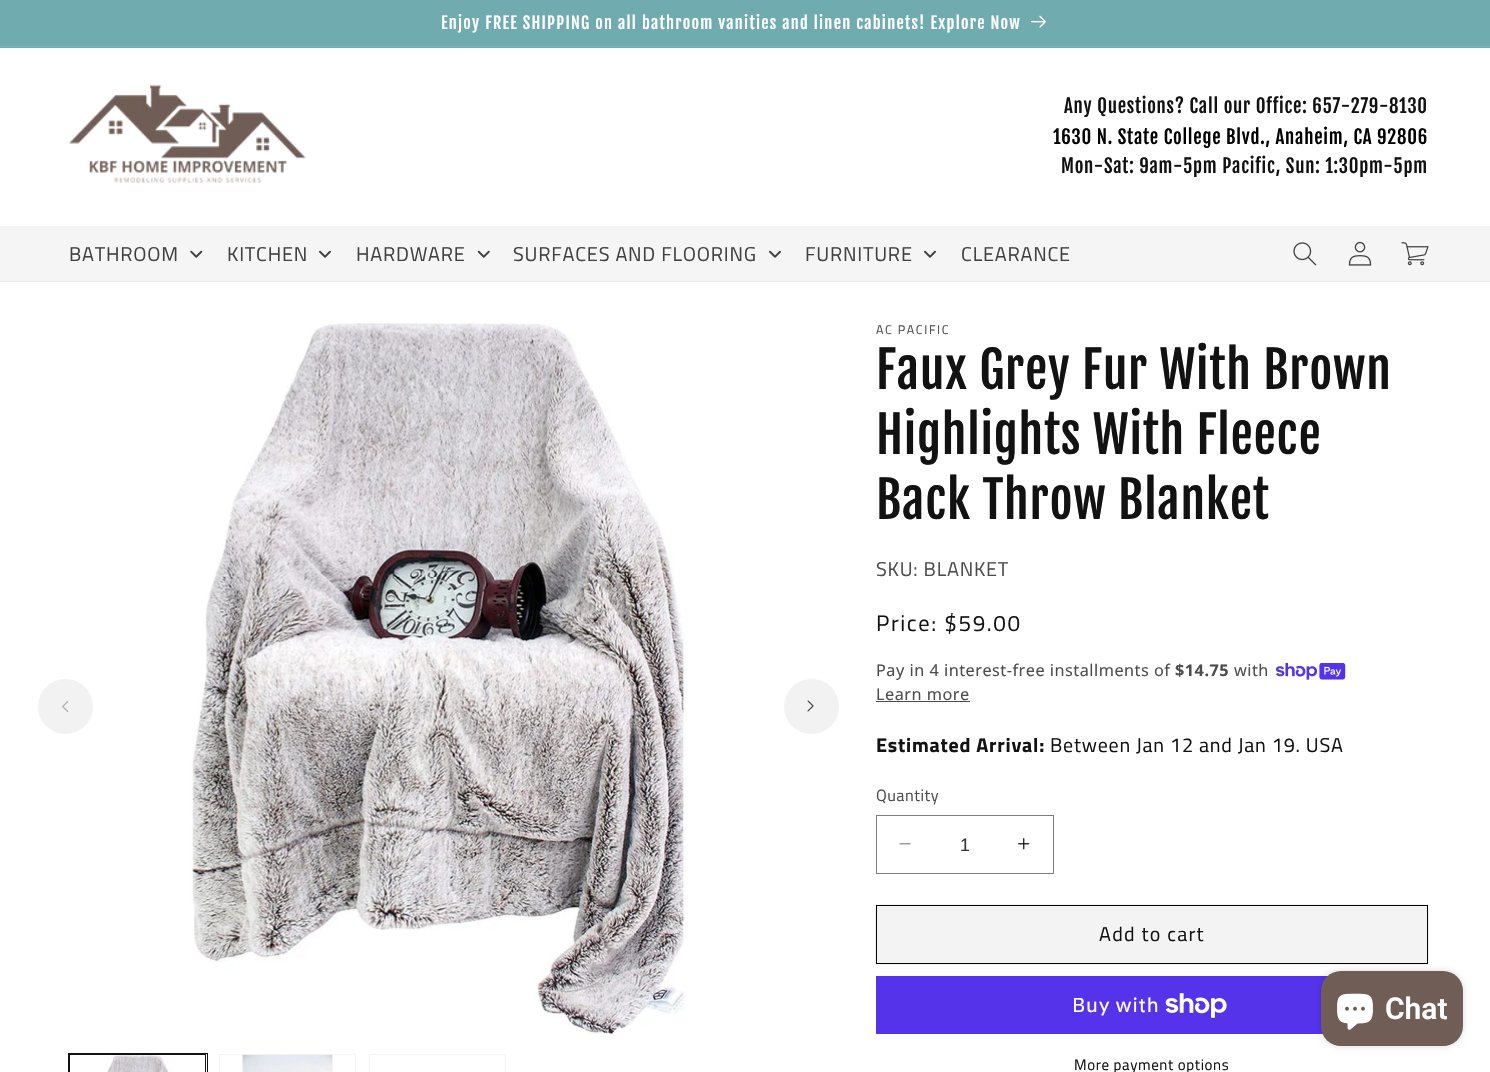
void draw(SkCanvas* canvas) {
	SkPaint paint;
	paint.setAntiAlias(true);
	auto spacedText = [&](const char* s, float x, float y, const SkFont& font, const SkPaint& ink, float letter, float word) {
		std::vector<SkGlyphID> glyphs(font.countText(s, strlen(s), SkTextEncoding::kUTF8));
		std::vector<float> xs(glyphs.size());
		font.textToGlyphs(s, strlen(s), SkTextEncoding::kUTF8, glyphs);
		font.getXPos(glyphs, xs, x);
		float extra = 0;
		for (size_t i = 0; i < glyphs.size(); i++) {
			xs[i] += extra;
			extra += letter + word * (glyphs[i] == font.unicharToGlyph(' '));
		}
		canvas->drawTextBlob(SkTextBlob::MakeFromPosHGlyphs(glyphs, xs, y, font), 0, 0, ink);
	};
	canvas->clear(0xffffffff);
	paint.setColor(0xff70abaf);
	canvas->drawRect(SkRect::MakeXYWH(0, 0, 1490, 48), paint);
	paint.setColor(0xff7bb2b5);
	canvas->drawRect(SkRect::MakeXYWH(0, 46, 1490, 1), paint);
	SkFont f1(fontMgr->matchFamilyStyle("Fjalla One", SkFontStyle::Normal()), 16.25);
	f1.setSubpixel(true);
	paint.setColor(0xffffffff);
	spacedText("Enjoy FREE SHIPPING on all bathroom vanities and linen cabinets! Explore Now", 441, 29, f1, paint, 1.25, 0);
	canvas->drawImageRect(SkImages::DeferredFromEncodedData(SkData::MakeFromFileName("img1.png")), SkRect::MakeXYWH(1031, 15, 15, 13), SkSamplingOptions());
	paint.setColor(0xffececec);
	canvas->drawRect(SkRect::MakeXYWH(0, 281, 1490, 1), paint);
	canvas->drawImageRect(SkImages::DeferredFromEncodedData(SkData::MakeFromFileName("img2.png")), SkRect::MakeXYWH(69, 84, 237, 99), SkSamplingOptions());
	SkFont f2(fontMgr->matchFamilyStyle("Fjalla One", SkFontStyle::Normal()), 18.75);
	f2.setSubpixel(true);
	paint.setColor(0xff121212);
	spacedText("Any Questions? Call our Office: 657-279-8130", 1064, 113, f2, paint, 0.75, 0);
	paint.setColor(0xff000000);
	spacedText("1630 N. State College Blvd., Anaheim, CA 92806", 1053, 144, f2, paint, 0.75, 0);
	paint.setColor(0xff121212);
	spacedText("Mon-Sat: 9am-5pm Pacific, Sun: 1:30pm-5pm", 1061, 173, f2, paint, 0.75, 0);
	paint.setColor(0xfff5f5f5);
	canvas->drawRect(SkRect::MakeXYWH(0, 226, 1490, 55), paint);
	SkFont f3(fontMgr->matchFamilyStyle("Titillium Web", SkFontStyle::Normal()), 20);
	f3.setSubpixel(true);
	paint.setColor(0xff414141);
	spacedText("BATHROOM", 69, 261, f3, paint, 0.75, 0);
	canvas->drawImageRect(SkImages::DeferredFromEncodedData(SkData::MakeFromFileName("img3.png")), SkRect::MakeXYWH(190, 250, 13, 8), SkSamplingOptions());
	spacedText("KITCHEN", 227, 261, f3, paint, 0.75, 0);
	canvas->drawImageRect(SkImages::DeferredFromEncodedData(SkData::MakeFromFileName("img4.png")), SkRect::MakeXYWH(319, 250, 12, 8), SkSamplingOptions());
	spacedText("HARDWARE", 356, 261, f3, paint, 0.75, 0);
	canvas->drawImageRect(SkImages::DeferredFromEncodedData(SkData::MakeFromFileName("img5.png")), SkRect::MakeXYWH(477, 250, 13, 8), SkSamplingOptions());
	spacedText("SURFACES AND FLOORING", 513, 261, f3, paint, 0.75, 0);
	canvas->drawImageRect(SkImages::DeferredFromEncodedData(SkData::MakeFromFileName("img4.png")), SkRect::MakeXYWH(769, 250, 12, 8), SkSamplingOptions());
	spacedText("FURNITURE", 805, 261, f3, paint, 0.75, 0);
	canvas->drawImageRect(SkImages::DeferredFromEncodedData(SkData::MakeFromFileName("img4.png")), SkRect::MakeXYWH(924, 250, 12, 8), SkSamplingOptions());
	spacedText("CLEARANCE", 961, 261, f3, paint, 0.75, 0);
	canvas->drawImageRect(SkImages::DeferredFromEncodedData(SkData::MakeFromFileName("img6.png")), SkRect::MakeXYWH(1293, 242, 24, 24), SkSamplingOptions());
	canvas->drawImageRect(SkImages::DeferredFromEncodedData(SkData::MakeFromFileName("img7.png")), SkRect::MakeXYWH(1348, 241, 24, 25), SkSamplingOptions());
	canvas->drawImageRect(SkImages::DeferredFromEncodedData(SkData::MakeFromFileName("img8.png")), SkRect::MakeXYWH(1401, 242, 28, 24), SkSamplingOptions());
	canvas->drawImageRect(SkImages::DeferredFromEncodedData(SkData::MakeFromFileName("img9.png")), SkRect::MakeXYWH(190, 323, 497, 712), SkSamplingOptions());
	paint.setColor(0xfff2f2f2);
	canvas->drawCircle(65.5, 706.5, 27.5, paint);
	canvas->drawImageRect(SkImages::DeferredFromEncodedData(SkData::MakeFromFileName("img10.png")), SkRect::MakeXYWH(62, 701, 7, 11), SkSamplingOptions());
	canvas->drawCircle(811.5, 706.5, 27.5, paint);
	canvas->drawImageRect(SkImages::DeferredFromEncodedData(SkData::MakeFromFileName("img11.png")), SkRect::MakeXYWH(807, 700, 7, 12), SkSamplingOptions());
	paint.setStroke(true);
	paint.setStrokeWidth(1);
	paint.setColor(0xff121212);
	canvas->drawRect(SkRect::MakeXYWH(68.5, 1053.5, 139, 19), paint);
	canvas->drawRect(SkRect::MakeXYWH(69.5, 1054.5, 136, 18), paint);
	canvas->drawImageRect(SkImages::DeferredFromEncodedData(SkData::MakeFromFileName("img12.png")), SkRect::MakeXYWH(107, 1055, 62, 17), SkSamplingOptions());
	paint.setColor(0xfff3f3f3);
	canvas->drawRect(SkRect::MakeXYWH(219.5, 1054.5, 136, 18), paint);
	canvas->drawImageRect(SkImages::DeferredFromEncodedData(SkData::MakeFromFileName("img13.png")), SkRect::MakeXYWH(242, 1055, 91, 17), SkSamplingOptions());
	canvas->drawRect(SkRect::MakeXYWH(369.5, 1054.5, 136, 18), paint);
	SkFont f4(fontMgr->matchFamilyStyle("Titillium Web", SkFontStyle::Normal()), 12.5);
	f4.setSubpixel(true);
	paint.setStroke(false);
	paint.setColor(0xff4d4d4d);
	spacedText("AC PACIFIC", 876, 334, f4, paint, 1.6, 0);
	SkFont f5(fontMgr->matchFamilyStyle("Fjalla One", SkFontStyle::Normal()), 50);
	f5.setSubpixel(true);
	paint.setColor(0xff121212);
	spacedText("Faux Grey Fur With Brown", 876, 389, f5, paint, 0.75, 0);
	spacedText("Highlights With Fleece", 876, 454, f5, paint, 0.75, 0);
	spacedText("Back Throw Blanket", 876, 519, f5, paint, 0.75, 0);
	paint.setColor(0xff4d4d4d);
	spacedText("SKU: BLANKET", 876, 576, f3, paint, 0.75, 0);
	SkFont f6(fontMgr->matchFamilyStyle("Titillium Web", SkFontStyle::Normal()), 22.5);
	f6.setSubpixel(true);
	paint.setColor(0xff121212);
	spacedText("Price: $59.00", 876, 631, f6, paint, 1.6, 0);
	SkFont f7(fontMgr->matchFamilyStyle("Noto Sans", SkFontStyle::Normal()), 16.25);
	f7.setSubpixel(true);
	paint.setColor(0xff4d4d4d);
	spacedText("Pay in 4 interest-free installments of", 876, 676, f7, paint, 0.5, 0);
	SkFont f8(fontMgr->matchFamilyStyle("Noto Sans", SkFontStyle::Bold()), 16.25);
	f8.setSubpixel(true);
	spacedText("$14.75", 1175, 676, f8, paint, 0.5, 0);
	spacedText("with", 1234, 676, f7, paint, 0.5, 0);
	canvas->drawImageRect(SkImages::DeferredFromEncodedData(SkData::MakeFromFileName("img14.png")), SkRect::MakeXYWH(1276, 663, 70, 17), SkSamplingOptions());
	spacedText("Learn more", 876, 700, f7, paint, 0.5, 0);
	canvas->drawRect(SkRect::MakeXYWH(876, 701, 94, 1), paint);
	SkFont f9(fontMgr->matchFamilyStyle("Titillium Web", SkFontStyle::Bold()), 20);
	f9.setSubpixel(true);
	paint.setColor(0xff121212);
	spacedText("Estimated Arrival:", 876, 752, f9, paint, 0.75, 0);
	spacedText("Between Jan 12 and Jan 19. USA", 1050, 752, f3, paint, 0.75, 0);
	SkFont f10(fontMgr->matchFamilyStyle("Titillium Web", SkFontStyle::Normal()), 16.25);
	f10.setSubpixel(true);
	paint.setColor(0xff4d4d4d);
	spacedText("Quantity", 876, 801, f10, paint, 0.5, 0);
	canvas->drawImageRect(SkImages::DeferredFromEncodedData(SkData::MakeFromFileName("img15.png")), SkRect::MakeXYWH(899, 843, 12, 2), SkSamplingOptions());
	canvas->drawImageRect(SkImages::DeferredFromEncodedData(SkData::MakeFromFileName("img16.png")), SkRect::MakeXYWH(1018, 838, 12, 12), SkSamplingOptions());
	paint.setStroke(true);
	paint.setColor(0xff7d7d7d);
	canvas->drawRect(SkRect::MakeXYWH(876.5, 815.5, 177, 58), paint);
	SkFont f11(fontMgr->matchFamilyStyle("Liberation Sans", SkFontStyle::Normal()), 18);
	f11.setSubpixel(true);
	paint.setStroke(false);
	paint.setColor(0xff363636);
	canvas->drawString("1", 960, 851, f11, paint);
	paint.setStroke(true);
	paint.setColor(0xfff3f3f3);
	canvas->drawRect(SkRect::MakeXYWH(875.5, 904.5, 553, 60), paint);
	paint.setStroke(false);
	canvas->drawRect(SkRect::MakeXYWH(877, 906, 550, 57), paint);
	paint.setStroke(true);
	paint.setColor(0xff000000);
	canvas->drawRect(SkRect::MakeXYWH(876.5, 905.5, 551, 58), paint);
	paint.setStroke(false);
	paint.setColor(0xff121212);
	spacedText("Add to cart", 1099, 941, f3, paint, 1.25, 0);
	paint.setColor(0xff5433eb);
	canvas->drawRect(SkRect::MakeXYWH(876, 976, 452, 58), paint);
	SkFont f12(fontMgr->matchFamilyStyle("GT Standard", SkFontStyle::Normal()), 20);
	f12.setSubpixel(true);
	paint.setColor(0xffffffff);
	spacedText("Buy with", 1072, 1012, f12, paint, 0.75, 0);
	canvas->drawImageRect(SkImages::DeferredFromEncodedData(SkData::MakeFromFileName("img17.png")), SkRect::MakeXYWH(1165, 993, 62, 25), SkSamplingOptions());
	SkFont f13(fontMgr->matchFamilyStyle("Titillium Web", SkFontStyle::Normal()), 15);
	f13.setSubpixel(true);
	paint.setColor(0xff121212);
	spacedText("More payment options", 1074, 1070, f13, paint, 0.6, 0);
	paint.setColor(0x26000000);
	paint.setMaskFilter(SkMaskFilter::MakeBlur(kNormal_SkBlurStyle, 3));
	canvas->drawRoundRect(SkRect::MakeXYWH(1321, 971, 142, 75), 20, 20, paint);
	paint.setMaskFilter(nullptr);
	paint.setColor(0xff705d56);
	canvas->drawRoundRect(SkRect::MakeXYWH(1321, 971, 142, 75), 20, 20, paint);
	canvas->drawImageRect(SkImages::DeferredFromEncodedData(SkData::MakeFromFileName("img18.png")), SkRect::MakeXYWH(1337, 993, 36, 37), SkSamplingOptions());
	SkFont f14(fontMgr->matchFamilyStyle("Roboto", SkFontStyle(600, SkFontStyle::kNormal_Width, SkFontStyle::kUpright_Slant)), 30);
	f14.setSubpixel(true);
	paint.setColor(0xffffffff);
	canvas->drawString("Chat", 1385, 1019, f14, paint);
}
